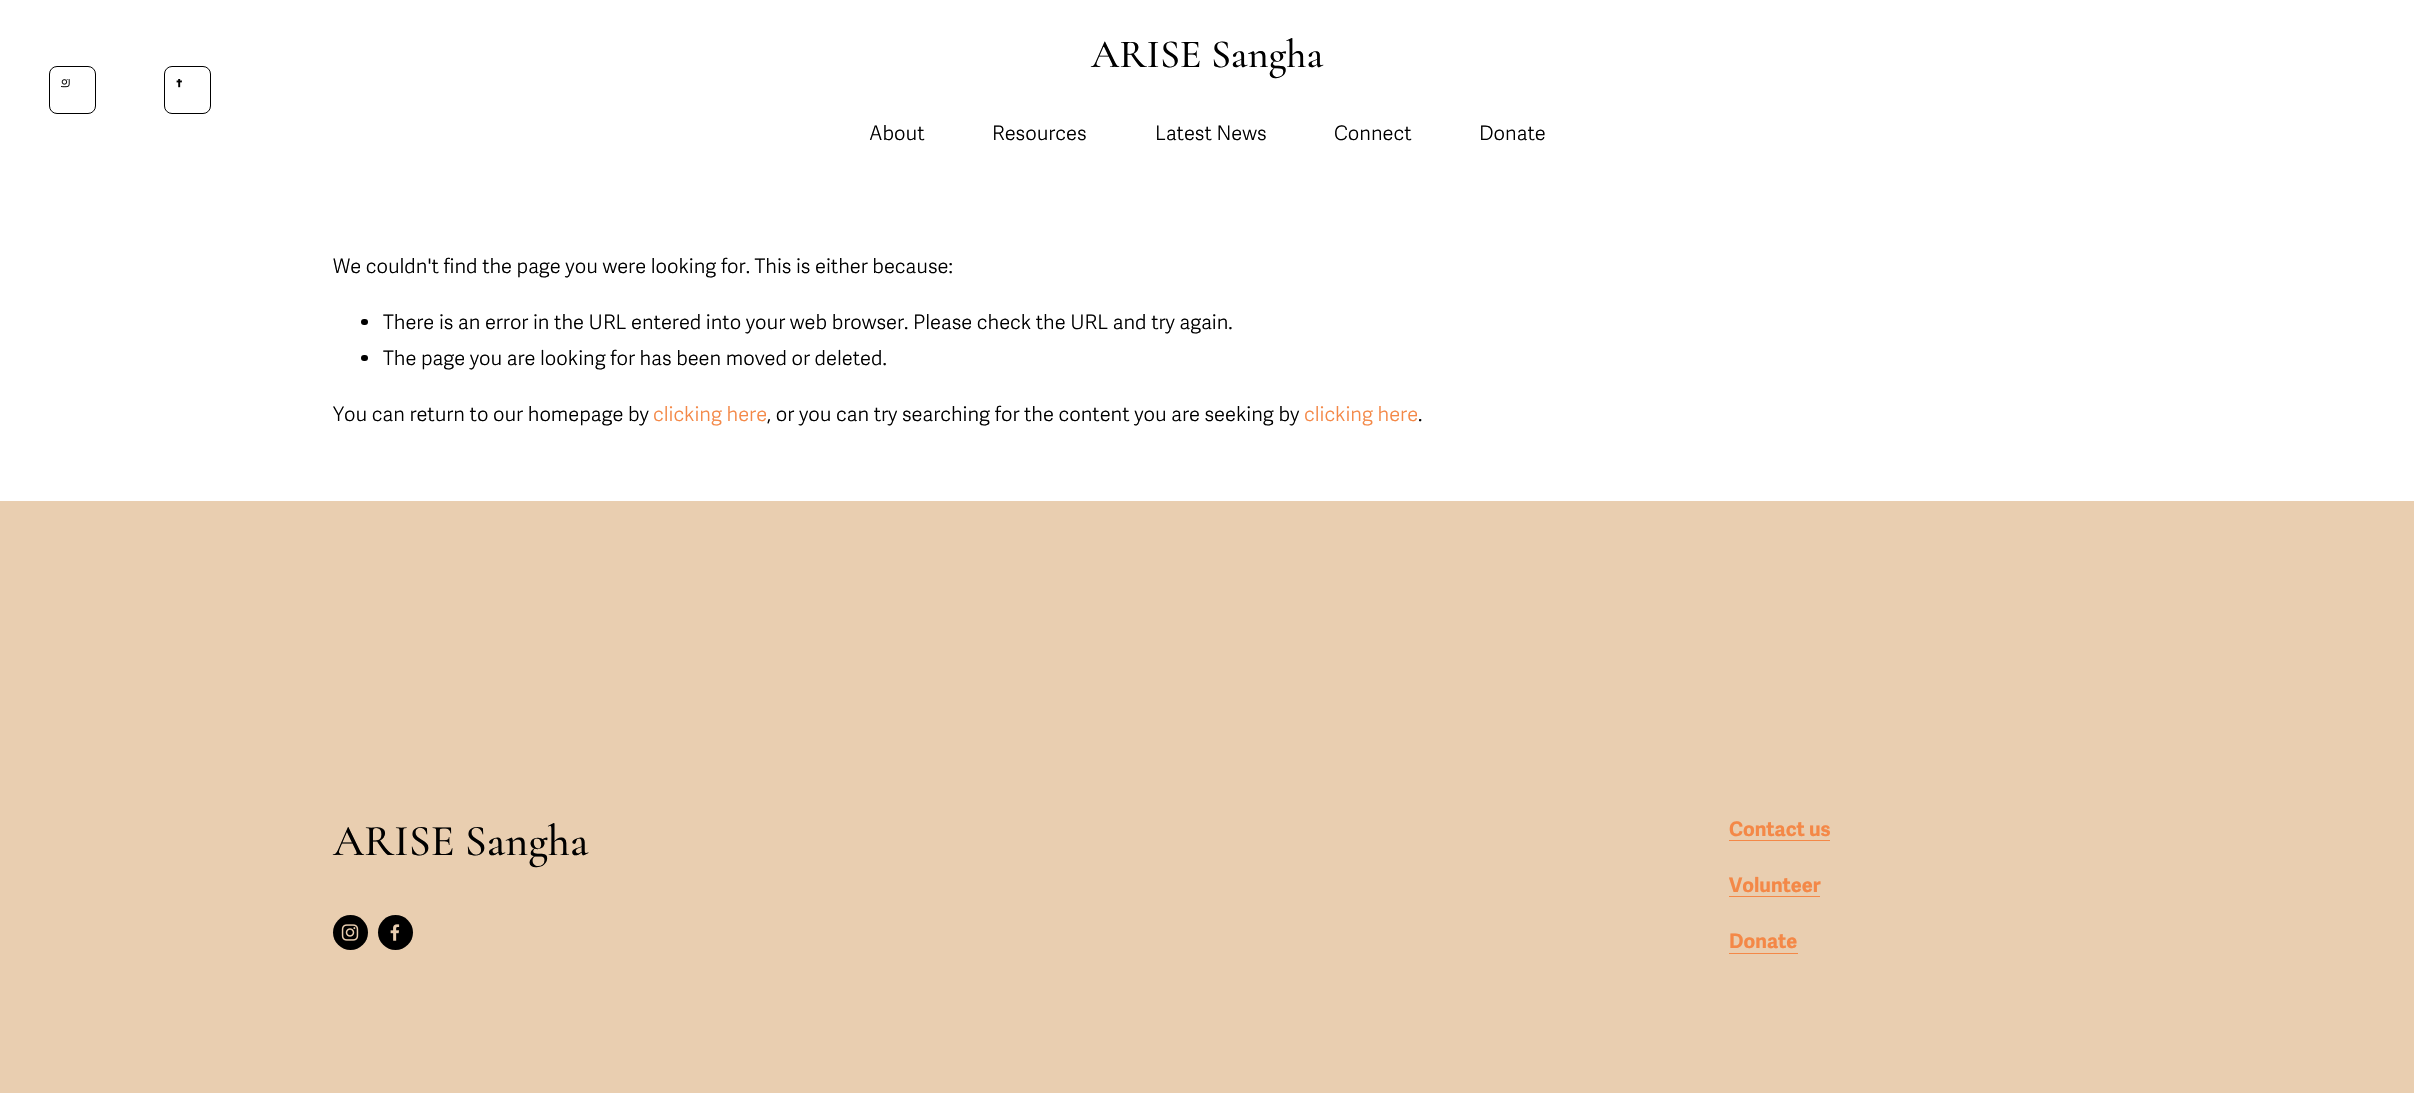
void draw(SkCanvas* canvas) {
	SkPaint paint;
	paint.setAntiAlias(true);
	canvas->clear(0xffffffff);
	paint.setStroke(true);
	paint.setStrokeWidth(1);
	paint.setColor(0xff000000);
	canvas->drawRoundRect(SkRect::MakeXYWH(49.5, 66.5, 46, 47), 7.5, 7.5, paint);
	canvas->drawImageRect(SkImages::DeferredFromEncodedData(SkData::MakeFromFileName("img1.png")), SkRect::MakeXYWH(61, 79, 9, 9), SkSamplingOptions());
	canvas->drawRoundRect(SkRect::MakeXYWH(164.5, 66.5, 46, 47), 7.5, 7.5, paint);
	canvas->drawImageRect(SkImages::DeferredFromEncodedData(SkData::MakeFromFileName("img2.png")), SkRect::MakeXYWH(176, 79, 6, 9), SkSamplingOptions());
	SkFont f1(fontMgr->matchFamilyStyle("Cormorant Garamond", SkFontStyle(500, SkFontStyle::kNormal_Width, SkFontStyle::kUpright_Slant)), 40);
	f1.setSubpixel(true);
	paint.setStroke(false);
	canvas->drawString("ARISE Sangha", 1091, 67, f1, paint);
	SkFont f2(fontMgr->matchFamilyStyle("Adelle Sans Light", SkFontStyle(300, SkFontStyle::kNormal_Width, SkFontStyle::kUpright_Slant)), 20);
	f2.setSubpixel(true);
	canvas->drawString("About", 869, 140, f2, paint);
	canvas->drawString("Resources", 992, 140, f2, paint);
	canvas->drawString("Latest News", 1155, 140, f2, paint);
	canvas->drawString("Connect", 1334, 140, f2, paint);
	canvas->drawString("Donate", 1479, 140, f2, paint);
	canvas->drawString("We couldn't find the page you were looking for. This is either because:", 333, 273, f2, paint);
	canvas->drawRoundRect(SkRect::MakeXYWH(361, 319, 7, 6), 3, 3, paint);
	canvas->drawString("There is an error in the URL entered into your web browser. Please check the URL and try again.", 383, 329, f2, paint);
	canvas->drawRoundRect(SkRect::MakeXYWH(361, 355, 7, 6), 3, 3, paint);
	canvas->drawString("The page you are looking for has been moved or deleted.", 383, 365, f2, paint);
	canvas->drawString("You can return to our homepage by", 333, 421, f2, paint);
	paint.setColor(0xfff48847);
	canvas->drawString("clicking here", 653, 421, f2, paint);
	paint.setColor(0xff000000);
	canvas->drawString(", or you can try searching for the content you are seeking by", 767, 421, f2, paint);
	paint.setColor(0xfff48847);
	canvas->drawString("clicking here", 1304, 421, f2, paint);
	paint.setColor(0xff000000);
	canvas->drawString(".", 1418, 421, f2, paint);
	paint.setColor(0xffe9ceb0);
	canvas->drawRect(SkRect::MakeXYWH(0, 501, 2414, 592), paint);
	SkFont f3(fontMgr->matchFamilyStyle("Cormorant Garamond", SkFontStyle(500, SkFontStyle::kNormal_Width, SkFontStyle::kUpright_Slant)), 44);
	f3.setSubpixel(true);
	paint.setColor(0xff000000);
	canvas->drawString("ARISE Sangha", 333, 855, f3, paint);
	SkFont f4(fontMgr->matchFamilyStyle("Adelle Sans", SkFontStyle::Bold()), 20);
	f4.setSubpixel(true);
	paint.setColor(0xfff48847);
	canvas->drawString("Contact us", 1729, 836, f4, paint);
	canvas->drawRect(SkRect::MakeXYWH(1729, 840, 101, 1), paint);
	canvas->drawString("Volunteer", 1729, 892, f4, paint);
	canvas->drawRect(SkRect::MakeXYWH(1729, 896, 91, 1), paint);
	canvas->drawString("Donate", 1729, 948, f4, paint);
	canvas->drawRect(SkRect::MakeXYWH(1729, 953, 69, 1), paint);
	paint.setColor(0xff000000);
	canvas->drawCircle(350.5, 932.5, 17.5, paint);
	canvas->drawImageRect(SkImages::DeferredFromEncodedData(SkData::MakeFromFileName("img3.png")), SkRect::MakeXYWH(341, 924, 18, 17), SkSamplingOptions());
	canvas->drawCircle(395.5, 932.5, 17.5, paint);
	canvas->drawImageRect(SkImages::DeferredFromEncodedData(SkData::MakeFromFileName("img4.png")), SkRect::MakeXYWH(390, 924, 10, 17), SkSamplingOptions());
}
